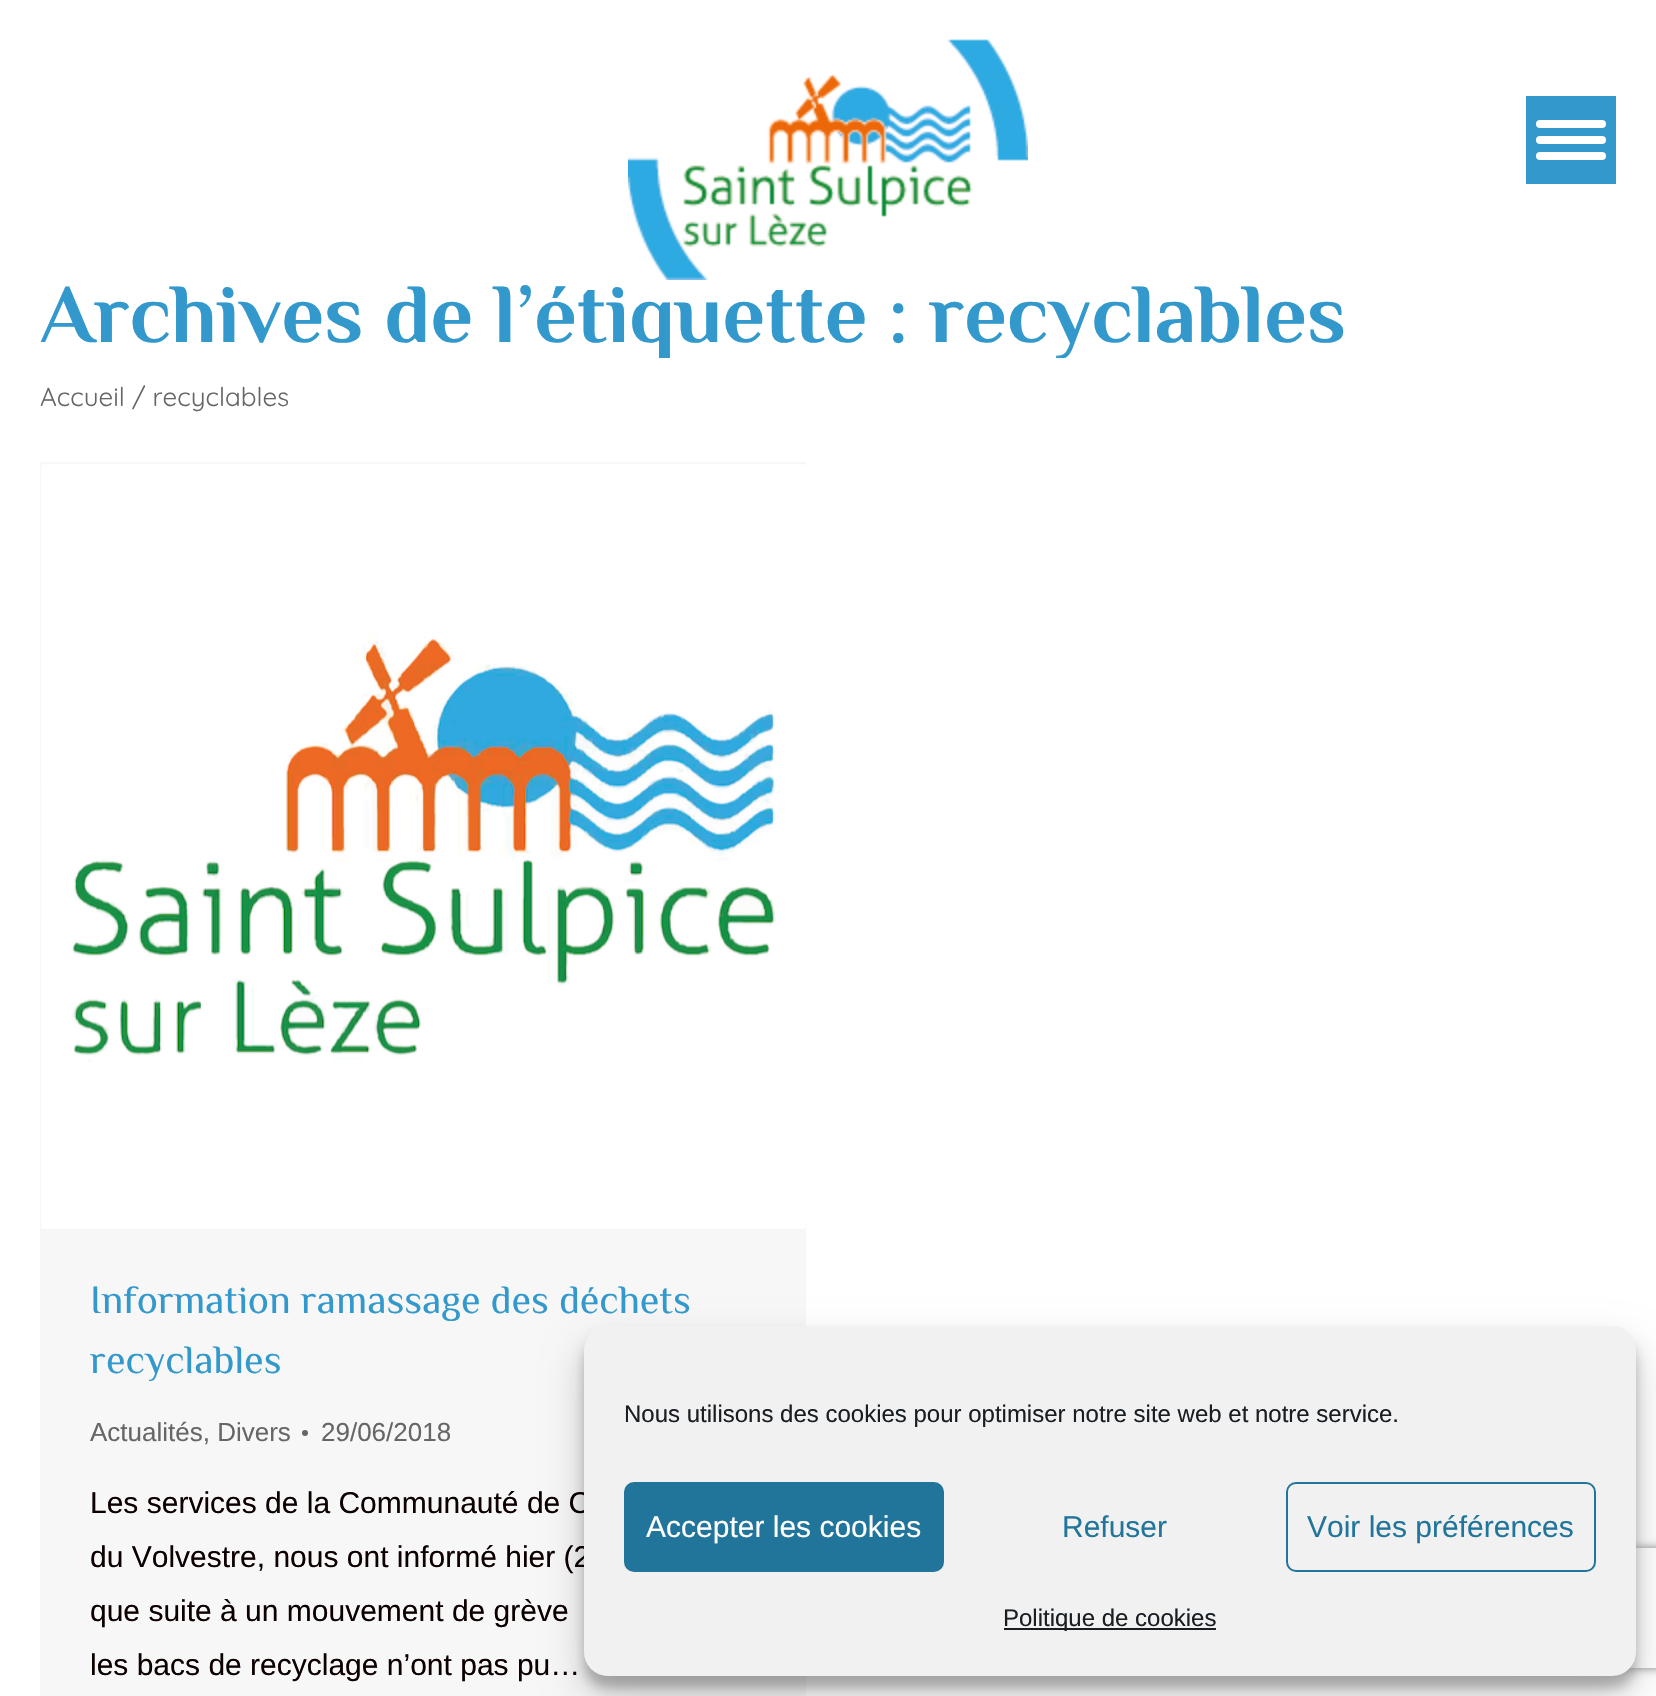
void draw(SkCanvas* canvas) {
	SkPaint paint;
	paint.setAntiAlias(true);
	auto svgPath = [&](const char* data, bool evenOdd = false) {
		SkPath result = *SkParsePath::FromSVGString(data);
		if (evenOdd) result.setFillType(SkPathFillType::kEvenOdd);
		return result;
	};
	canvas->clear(0xffffffff);
	canvas->drawImageRect(SkImages::DeferredFromEncodedData(SkData::MakeFromFileName("img1.png")), SkRect::MakeXYWH(628, 39, 400, 241), SkSamplingOptions());
	paint.setColor(0xff3399cc);
	canvas->drawRect(SkRect::MakeXYWH(1526, 96, 90, 88), paint);
	paint.setColor(0xffffffff);
	canvas->drawRoundRect(SkRect::MakeXYWH(1536, 120, 70, 8), 4, 4, paint);
	canvas->drawRoundRect(SkRect::MakeXYWH(1536, 136, 70, 8), 4, 4, paint);
	canvas->drawRoundRect(SkRect::MakeXYWH(1536, 152, 70, 8), 4, 4, paint);
	SkFont f1(fontMgr->matchFamilyStyle("Philosopher", SkFontStyle::Bold()), 84);
	f1.setSubpixel(true);
	paint.setColor(0xff3399cc);
	canvas->drawString("Archives de l’étiquette :", 40, 342, f1, paint);
	canvas->save();
	canvas->clipRect(SkRect::MakeXYWH(40, 270, 1306, 88));
	canvas->drawString("recyclables", 929, 342, f1, paint);
	canvas->restore();
	SkFont f2(fontMgr->matchFamilyStyle("Quicksand", SkFontStyle::Normal()), 26);
	f2.setSubpixel(true);
	paint.setColor(0xff666666);
	canvas->drawString("Accueil / recyclables", 40, 406, f2, paint);
	paint.setColor(0xfff7f7f7);
	canvas->drawRect(SkRect::MakeXYWH(40, 462, 766, 1234), paint);
	canvas->drawImageRect(SkImages::DeferredFromEncodedData(SkData::MakeFromFileName("img2.png")), SkRect::MakeXYWH(41, 464, 765, 765), SkSamplingOptions());
	SkFont f3(fontMgr->matchFamilyStyle("Philosopher", SkFontStyle::Normal()), 40);
	f3.setSubpixel(true);
	paint.setColor(0xff3399cc);
	canvas->drawString("Information ramassage des déchets", 90, 1313, f3, paint);
	canvas->drawString("recyclables", 90, 1373, f3, paint);
	SkFont f4(fontMgr->matchFamilyStyle("Liberation Sans", SkFontStyle::Normal()), 26);
	f4.setSubpixel(true);
	paint.setColor(0xff666666);
	canvas->drawString("Actualités, Divers", 90, 1441, f4, paint);
	canvas->drawCircle(305, 1433, 3, paint);
	canvas->drawString("29/06/2018", 321, 1441, f4, paint);
	SkFont f5(fontMgr->matchFamilyStyle("Liberation Sans", SkFontStyle::Normal()), 30);
	f5.setSubpixel(true);
	paint.setColor(0xff0c0000);
	canvas->drawString("Les services de la Communauté de C", 90, 1513, f5, paint);
	canvas->drawString("du Volvestre, nous ont informé hier (2", 90, 1567, f5, paint);
	canvas->drawString("que suite à un mouvement de grève", 90, 1621, f5, paint);
	canvas->drawString("les bacs de recyclage n’ont pas pu…", 90, 1675, f5, paint);
	paint.setColor(0x3b000000);
	paint.setMaskFilter(SkMaskFilter::MakeBlur(kNormal_SkBlurStyle, 6));
	canvas->drawRoundRect(SkRect::MakeXYWH(584, 1338, 1052, 350), 24, 24, paint);
	paint.setMaskFilter(nullptr);
	paint.setColor(0x30000000);
	paint.setMaskFilter(SkMaskFilter::MakeBlur(kNormal_SkBlurStyle, 20));
	canvas->drawRoundRect(SkRect::MakeXYWH(584, 1346, 1052, 350), 24, 24, paint);
	paint.setMaskFilter(nullptr);
	canvas->save();
	canvas->clipPath(svgPath("M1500 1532H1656V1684H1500ZM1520 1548H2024C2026 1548 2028 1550 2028 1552V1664C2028 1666 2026 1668 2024 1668H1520C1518 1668 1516 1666 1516 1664V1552C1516 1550 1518 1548 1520 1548Z", true), true);
	paint.setColor(0xff808080);
	paint.setMaskFilter(SkMaskFilter::MakeBlur(kNormal_SkBlurStyle, 5));
	canvas->drawRoundRect(SkRect::MakeXYWH(1516, 1548, 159, 120), 4, 4, paint);
	paint.setMaskFilter(nullptr);
	canvas->restore();
	paint.setColor(0xfff1f1f1);
	canvas->drawRoundRect(SkRect::MakeXYWH(584, 1326, 1052, 350), 24, 24, paint);
	SkFont f6(fontMgr->matchFamilyStyle("Liberation Sans", SkFontStyle::Normal()), 24);
	f6.setSubpixel(true);
	paint.setColor(0xff191e23);
	canvas->drawString("Nous utilisons des cookies pour optimiser notre site web et notre service.", 624, 1422, f6, paint);
	paint.setColor(0xff21759b);
	canvas->drawRoundRect(SkRect::MakeXYWH(625, 1483, 318, 88), 9, 9, paint);
	paint.setStroke(true);
	paint.setStrokeWidth(2);
	canvas->drawRoundRect(SkRect::MakeXYWH(625, 1483, 318, 88), 9, 9, paint);
	paint.setStroke(false);
	paint.setColor(0xffffffff);
	canvas->drawString("Accepter les cookies", 646, 1537, f5, paint);
	paint.setColor(0xff21759b);
	canvas->drawString("Refuser", 1062, 1537, f5, paint);
	paint.setStroke(true);
	canvas->drawRoundRect(SkRect::MakeXYWH(1287, 1483, 308, 88), 9, 9, paint);
	paint.setStroke(false);
	canvas->drawString("Voir les préférences", 1307, 1537, f5, paint);
	paint.setColor(0xff191e23);
	canvas->drawRect(SkRect::MakeXYWH(1004, 1628, 212, 2), paint);
	canvas->drawString("Politique de cookies", 1003, 1626, f6, paint);
}
